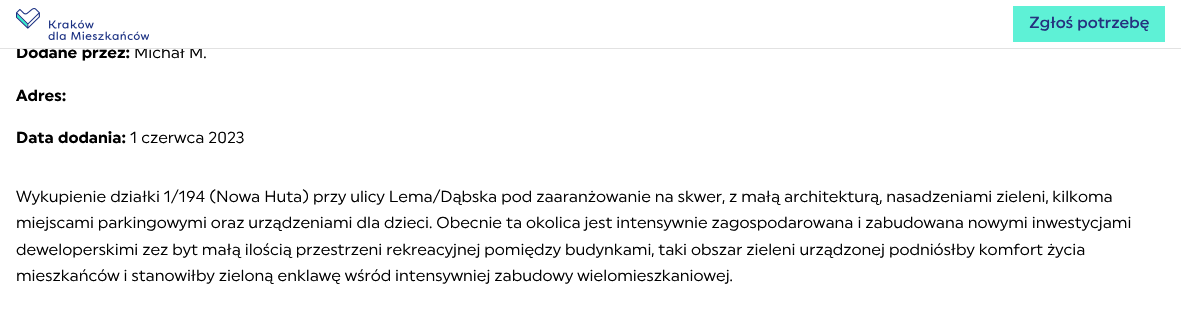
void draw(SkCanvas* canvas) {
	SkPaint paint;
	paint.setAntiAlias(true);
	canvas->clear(0xffffffff);
	SkFont f1(fontMgr->matchFamilyStyle("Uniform", SkFontStyle::Bold()), 16);
	f1.setSubpixel(true);
	paint.setColor(0xff000000);
	canvas->drawString("Dodane przez:", 16, 58, f1, paint);
	SkFont f2(fontMgr->matchFamilyStyle("Uniform", SkFontStyle::Normal()), 16);
	f2.setSubpixel(true);
	canvas->drawString("Michał M.", 134, 58, f2, paint);
	paint.setColor(0xffffffff);
	canvas->drawRect(SkRect::MakeXYWH(17, 46, 185, 2), paint);
	paint.setColor(0xffe2e2e2);
	canvas->drawRect(SkRect::MakeXYWH(0, 48, 1181, 1), paint);
	canvas->drawImageRect(SkImages::DeferredFromEncodedData(SkData::MakeFromFileName("img1.png")), SkRect::MakeXYWH(16, 8, 133, 32), SkSamplingOptions());
	paint.setColor(0xff5ef1d6);
	canvas->drawRect(SkRect::MakeXYWH(1013, 6, 152, 36), paint);
	SkFont f3(fontMgr->matchFamilyStyle("Uniform", SkFontStyle(500, SkFontStyle::kNormal_Width, SkFontStyle::kUpright_Slant)), 16);
	f3.setSubpixel(true);
	paint.setColor(0xff25327f);
	canvas->drawString("Zgłoś potrzebę", 1029, 28, f3, paint);
	paint.setColor(0xff000000);
	canvas->drawString("Adres:", 16, 101, f1, paint);
	canvas->drawString("Data dodania:", 16, 143, f1, paint);
	canvas->drawString("1 czerwca 2023", 130, 143, f2, paint);
	canvas->drawString("Wykupienie działki 1/194 (Nowa Huta) przy ulicy Lema/Dąbska pod zaaranżowanie na skwer, z małą architekturą, nasadzeniami zieleni, kilkoma", 16, 202, f2, paint);
	canvas->drawString("miejscami parkingowymi oraz urządzeniami dla dzieci. Obecnie ta okolica jest intensywnie zagospodarowana i zabudowana nowymi inwestycjami", 16, 228, f2, paint);
	canvas->drawString("deweloperskimi zez byt małą ilością przestrzeni rekreacyjnej pomiędzy budynkami, taki obszar zieleni urządzonej podniósłby komfort życia", 16, 255, f2, paint);
	canvas->drawString("mieszkańców i stanowiłby zieloną enklawę wśród intensywniej zabudowy wielomieszkaniowej.", 16, 281, f2, paint);
}
